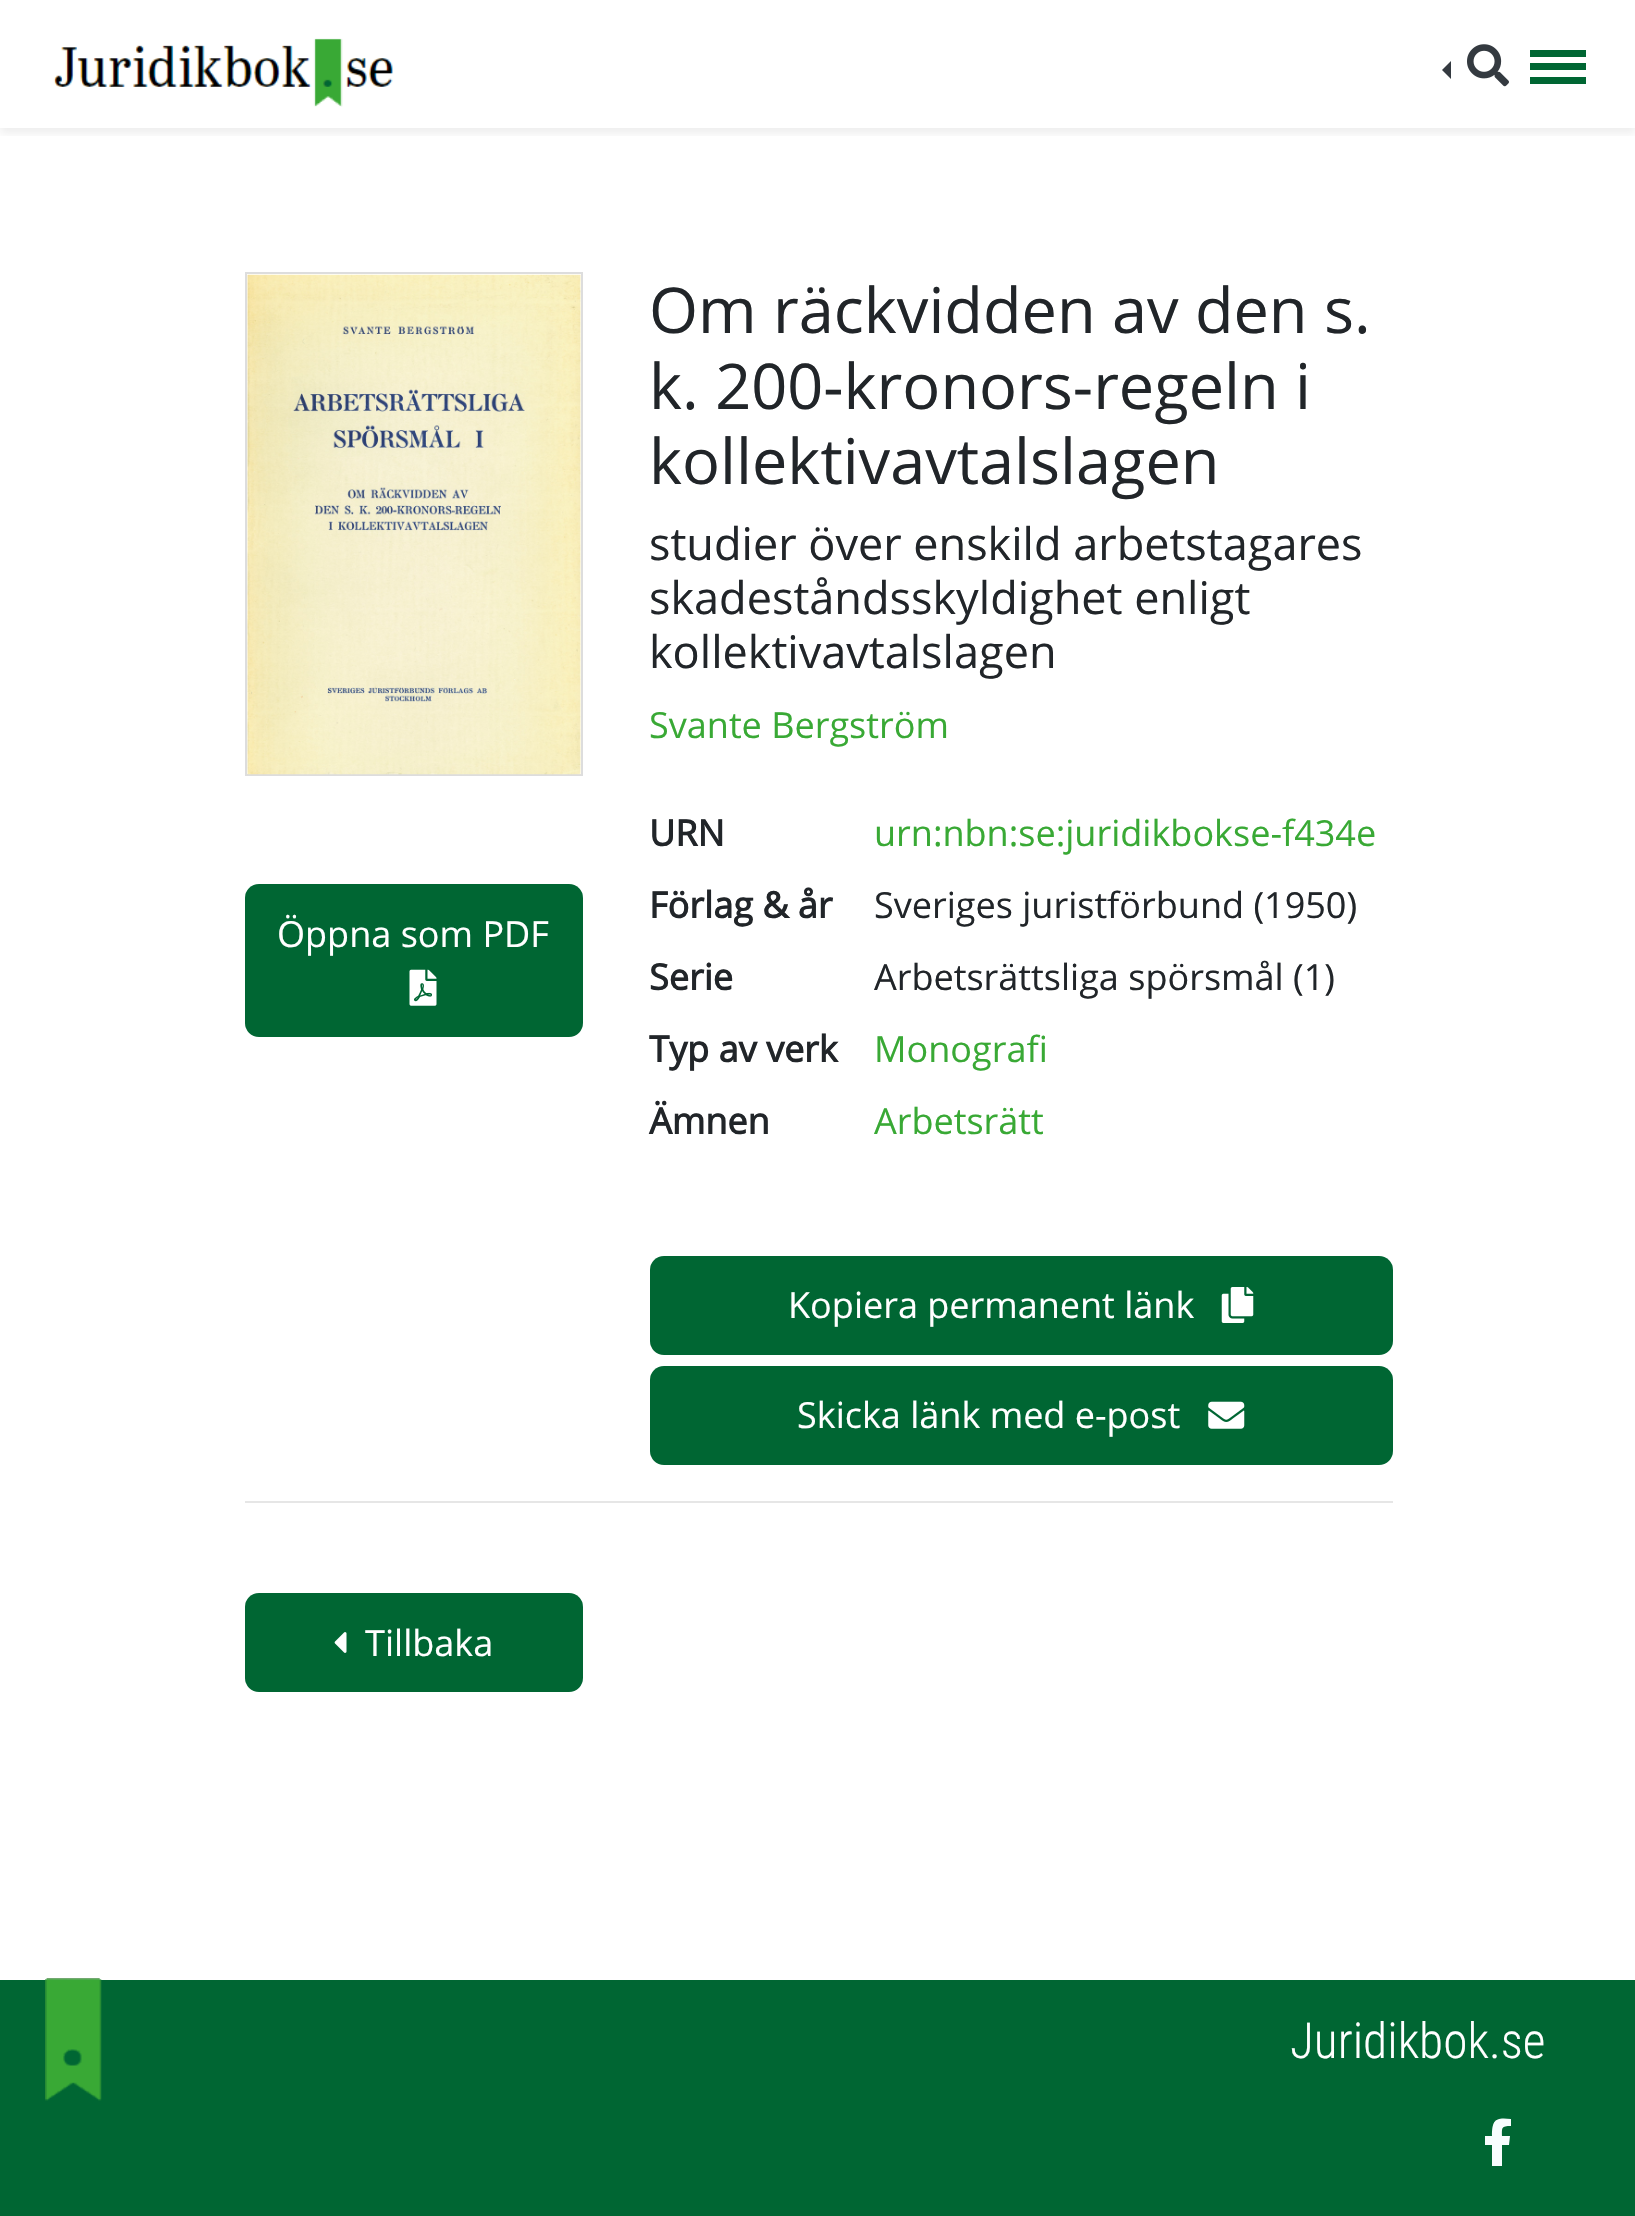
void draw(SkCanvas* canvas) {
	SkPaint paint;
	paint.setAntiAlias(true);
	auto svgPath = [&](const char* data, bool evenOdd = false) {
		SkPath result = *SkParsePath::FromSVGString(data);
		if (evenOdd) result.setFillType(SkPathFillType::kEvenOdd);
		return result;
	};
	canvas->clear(0xffffffff);
	canvas->save();
	canvas->clipRect(SkRect::MakeXYWH(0, 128, 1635, 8));
	paint.setColor(0x12000000);
	paint.setMaskFilter(SkMaskFilter::MakeBlur(kNormal_SkBlurStyle, 4.5));
	canvas->drawRect(SkRect::MakeXYWH(0, 2, 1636, 131), paint);
	paint.setMaskFilter(nullptr);
	canvas->restore();
	canvas->drawImageRect(SkImages::DeferredFromEncodedData(SkData::MakeFromFileName("img1.png")), SkRect::MakeXYWH(53, 38, 341, 69), SkSamplingOptions());
	paint.setColor(0xff343a40);
	canvas->drawPath(svgPath("M1451 61V79L1442 70Z"), paint);
	canvas->drawImageRect(SkImages::DeferredFromEncodedData(SkData::MakeFromFileName("img2.png")), SkRect::MakeXYWH(1467, 44, 42, 43), SkSamplingOptions());
	paint.setColor(0xff006633);
	canvas->drawRect(SkRect::MakeXYWH(1530, 50, 56, 7), paint);
	canvas->drawRect(SkRect::MakeXYWH(1530, 63, 56, 7), paint);
	canvas->drawRect(SkRect::MakeXYWH(1530, 77, 56, 7), paint);
	paint.setStroke(true);
	paint.setStrokeWidth(2);
	paint.setColor(0xffdddddd);
	canvas->drawRect(SkRect::MakeXYWH(246, 273, 336, 502), paint);
	canvas->drawImageRect(SkImages::DeferredFromEncodedData(SkData::MakeFromFileName("img3.png")), SkRect::MakeXYWH(247, 274, 334, 501), SkSamplingOptions());
	paint.setStroke(false);
	paint.setColor(0xff006633);
	canvas->drawRoundRect(SkRect::MakeXYWH(245, 884, 338, 153), 14, 14, paint);
	SkFont f1(fontMgr->matchFamilyStyle("Open Sans", SkFontStyle::Normal()), 36);
	f1.setSubpixel(true);
	paint.setColor(0xffffffff);
	canvas->drawString("Öppna som PDF", 277, 947, f1, paint);
	canvas->drawImageRect(SkImages::DeferredFromEncodedData(SkData::MakeFromFileName("img4.png")), SkRect::MakeXYWH(409, 969, 28, 37), SkSamplingOptions());
	SkFont f2(fontMgr->matchFamilyStyle("Open Sans", SkFontStyle::Normal()), 63);
	f2.setSubpixel(true);
	paint.setColor(0xff212529);
	canvas->drawString("Om räckvidden av den s.", 649, 333, f2, paint);
	canvas->drawString("k. 200-kronors-regeln i", 649, 409, f2, paint);
	canvas->drawString("kollektivavtalslagen", 649, 484, f2, paint);
	SkFont f3(fontMgr->matchFamilyStyle("Open Sans", SkFontStyle::Normal()), 45);
	f3.setSubpixel(true);
	canvas->drawString("studier över enskild arbetstagares", 649, 560, f3, paint);
	canvas->drawString("skadeståndsskyldighet enligt", 649, 614, f3, paint);
	canvas->drawString("kollektivavtalslagen", 649, 668, f3, paint);
	paint.setColor(0xff39a935);
	canvas->drawString("Svante Bergström", 649, 738, f1, paint);
	SkFont f4(fontMgr->matchFamilyStyle("Open Sans", SkFontStyle::Bold()), 36);
	f4.setSubpixel(true);
	paint.setColor(0xff212529);
	canvas->drawString("URN", 649, 846, f4, paint);
	paint.setColor(0xff39a935);
	canvas->drawString("urn:nbn:se:juridikbokse-f434e", 874, 846, f1, paint);
	paint.setColor(0xff212529);
	canvas->drawString("Förlag & år", 649, 918, f4, paint);
	canvas->drawString("Sveriges juristförbund (1950)", 874, 918, f1, paint);
	canvas->drawString("Serie", 649, 990, f4, paint);
	canvas->drawString("Arbetsrättsliga spörsmål (1)", 874, 990, f1, paint);
	canvas->drawString("Typ av verk", 649, 1062, f4, paint);
	paint.setColor(0xff39a935);
	canvas->drawString("Monografi", 874, 1062, f1, paint);
	paint.setColor(0xff212529);
	canvas->drawString("Ämnen", 649, 1134, f4, paint);
	paint.setColor(0xff39a935);
	canvas->drawString("Arbetsrätt", 874, 1134, f1, paint);
	paint.setColor(0xff006633);
	canvas->drawRoundRect(SkRect::MakeXYWH(650, 1256, 743, 99), 14, 14, paint);
	paint.setColor(0xffffffff);
	canvas->drawString("Kopiera permanent länk", 788, 1318, f1, paint);
	canvas->drawImageRect(SkImages::DeferredFromEncodedData(SkData::MakeFromFileName("img5.png")), SkRect::MakeXYWH(1221, 1287, 33, 36), SkSamplingOptions());
	paint.setColor(0xff006633);
	canvas->drawRoundRect(SkRect::MakeXYWH(650, 1366, 743, 99), 14, 14, paint);
	paint.setColor(0xffffffff);
	canvas->drawString("Skicka länk med e-post", 797, 1428, f1, paint);
	canvas->drawImageRect(SkImages::DeferredFromEncodedData(SkData::MakeFromFileName("img6.png")), SkRect::MakeXYWH(1208, 1401, 37, 28), SkSamplingOptions());
	paint.setColor(0xffe6e6e6);
	canvas->drawRect(SkRect::MakeXYWH(245, 1501, 1148, 2), paint);
	paint.setColor(0xff006633);
	canvas->drawRoundRect(SkRect::MakeXYWH(245, 1593, 338, 99), 14, 14, paint);
	canvas->drawImageRect(SkImages::DeferredFromEncodedData(SkData::MakeFromFileName("img7.png")), SkRect::MakeXYWH(334, 1632, 13, 21), SkSamplingOptions());
	paint.setColor(0xffffffff);
	canvas->drawString("Tillbaka", 365, 1656, f1, paint);
	paint.setColor(0xff006633);
	canvas->drawRect(SkRect::MakeXYWH(0, 1980, 1635, 236), paint);
	canvas->drawImageRect(SkImages::DeferredFromEncodedData(SkData::MakeFromFileName("img8.png")), SkRect::MakeXYWH(45, 1978, 57, 123), SkSamplingOptions());
	SkFont f5(fontMgr->matchFamilyStyle("Roboto Condensed", SkFontStyle(300, SkFontStyle::kNormal_Width, SkFontStyle::kUpright_Slant)), 49.5);
	f5.setSubpixel(true);
	paint.setColor(0xffffffff);
	canvas->drawString("Juridikbok.se", 1290, 2058, f5, paint);
	paint.setColor(0xfff8fdfe);
	canvas->drawPath(svgPath("M1509 2145H1502V2166H1492V2145H1485V2136H1492C1492 2120 1495 2117 1511 2119V2126C1501 2126 1502 2128 1502 2136H1510Z"), paint);
}
